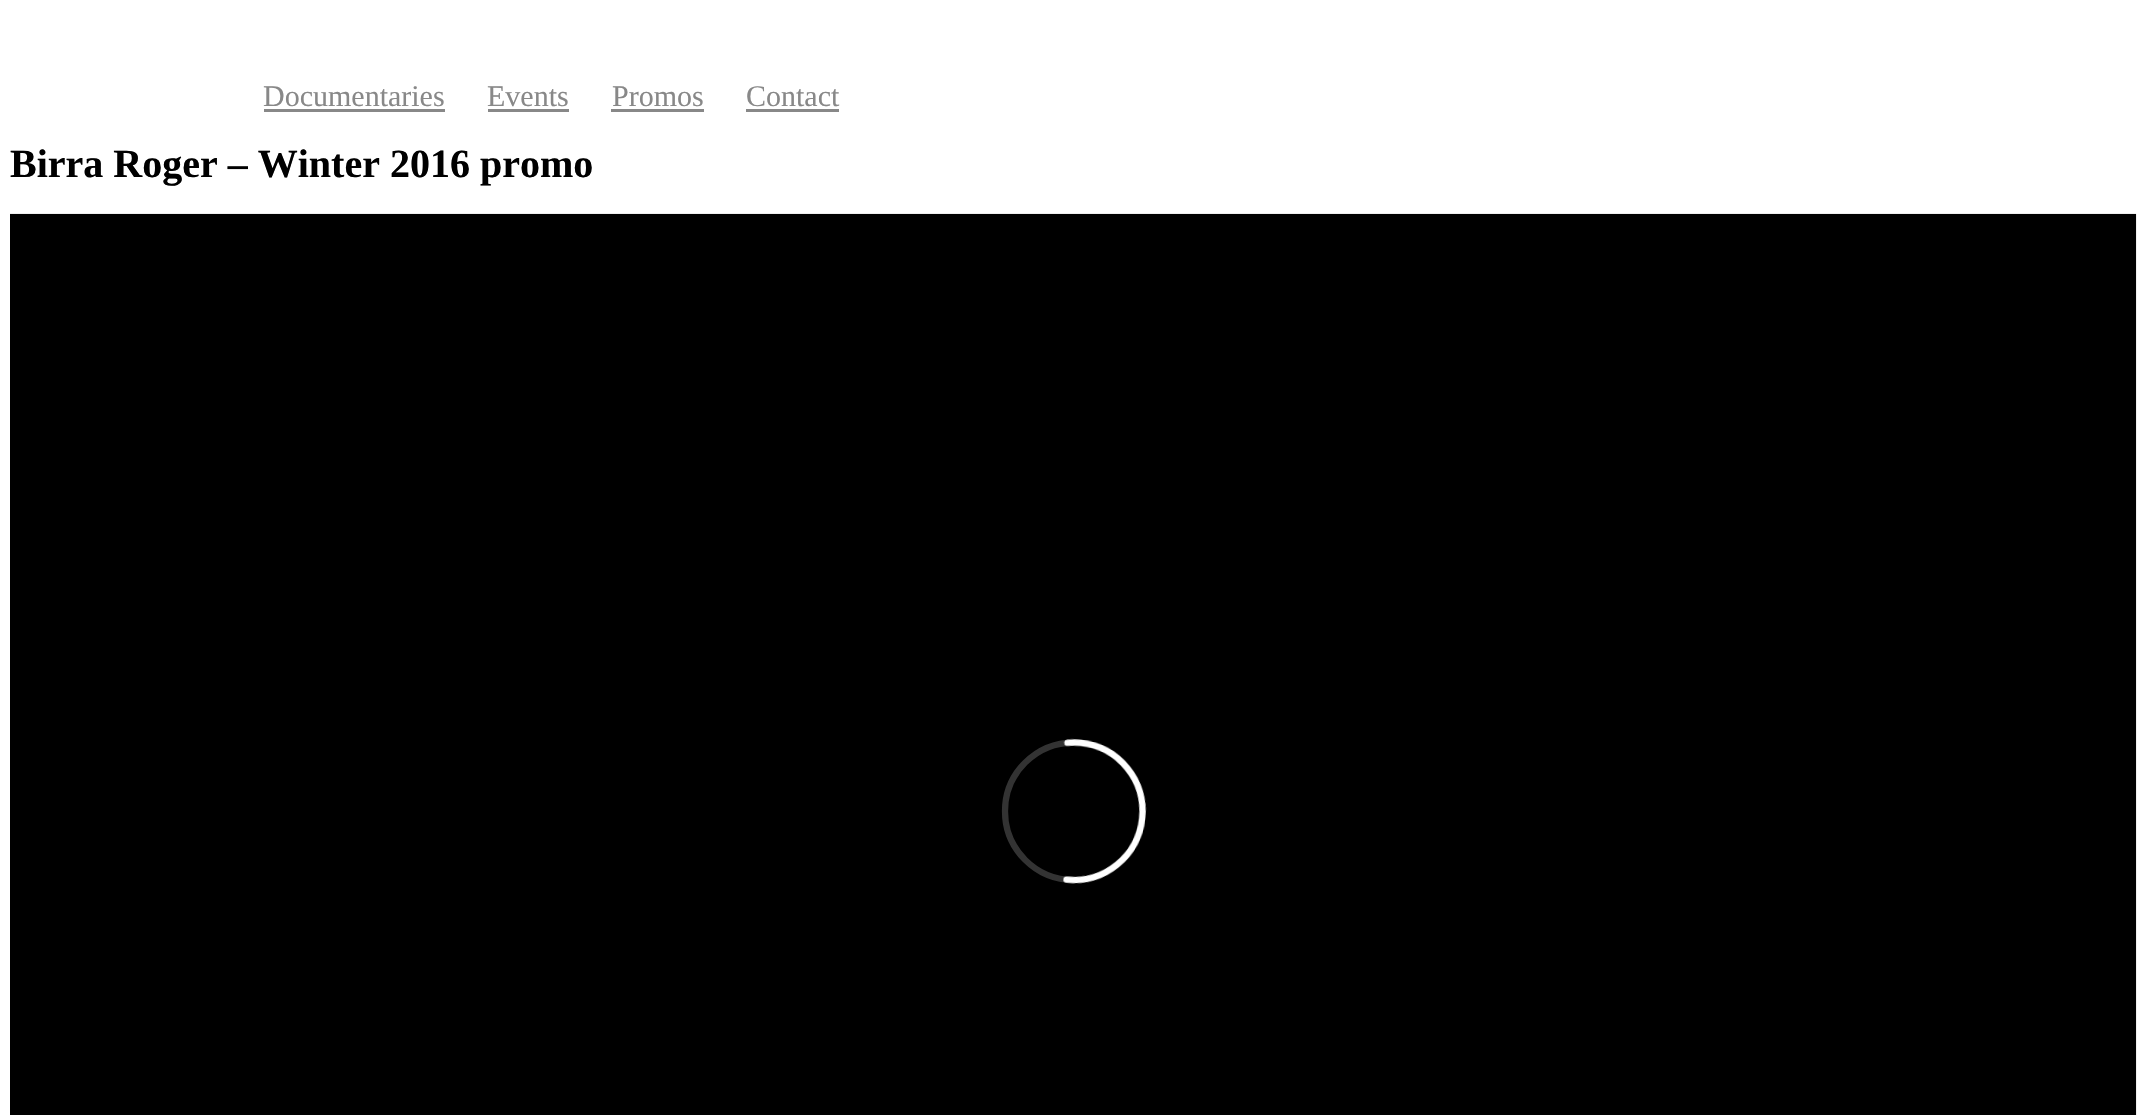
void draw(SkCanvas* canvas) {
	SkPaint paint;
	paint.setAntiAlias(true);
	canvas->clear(0xffffffff);
	SkFont f1(fontMgr->matchFamilyStyle("Liberation Serif", SkFontStyle::Normal()), 30);
	f1.setSubpixel(true);
	paint.setColor(0xff888888);
	canvas->drawString("Documentaries", 263, 106, f1, paint);
	canvas->drawRect(SkRect::MakeXYWH(264, 109, 181, 3), paint);
	canvas->drawString("Events", 487, 106, f1, paint);
	canvas->drawRect(SkRect::MakeXYWH(488, 109, 81, 3), paint);
	canvas->drawString("Promos", 612, 106, f1, paint);
	canvas->drawRect(SkRect::MakeXYWH(611, 109, 93, 3), paint);
	canvas->drawString("Contact", 746, 106, f1, paint);
	canvas->drawRect(SkRect::MakeXYWH(746, 109, 93, 3), paint);
	SkFont f2(fontMgr->matchFamilyStyle("Liberation Serif", SkFontStyle::Bold()), 40);
	f2.setSubpixel(true);
	paint.setColor(0xff000000);
	canvas->drawString("Birra Roger – Winter 2016 promo", 10, 177, f2, paint);
	canvas->drawImageRect(SkImages::DeferredFromEncodedData(SkData::MakeFromFileName("img1.png")), SkRect::MakeXYWH(10, 213, 2127, 902), SkSamplingOptions());
}
